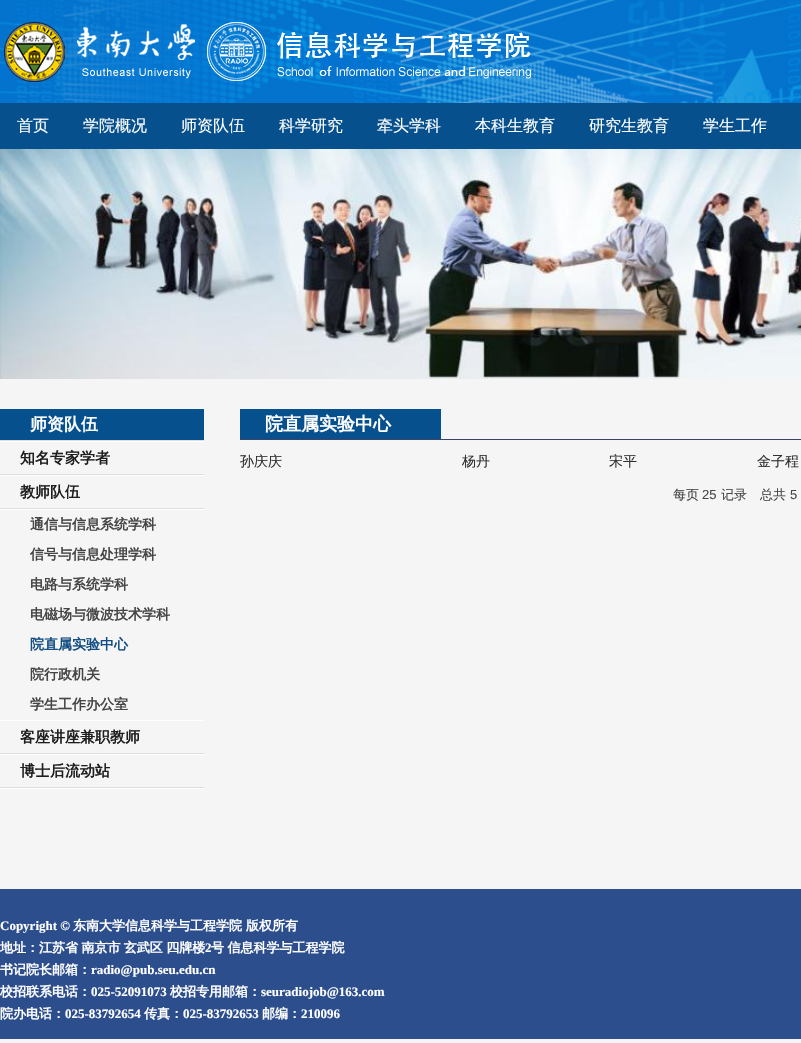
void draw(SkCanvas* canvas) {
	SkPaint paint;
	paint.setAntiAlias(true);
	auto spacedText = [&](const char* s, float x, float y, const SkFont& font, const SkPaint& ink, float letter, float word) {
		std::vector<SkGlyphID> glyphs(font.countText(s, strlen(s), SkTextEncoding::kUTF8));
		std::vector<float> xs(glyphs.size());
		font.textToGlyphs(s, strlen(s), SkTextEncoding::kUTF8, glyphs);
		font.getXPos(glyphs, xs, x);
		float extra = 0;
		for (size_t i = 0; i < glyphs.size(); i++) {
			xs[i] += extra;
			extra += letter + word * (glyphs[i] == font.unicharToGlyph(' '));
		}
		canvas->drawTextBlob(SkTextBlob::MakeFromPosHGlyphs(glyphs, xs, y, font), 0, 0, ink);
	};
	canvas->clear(0xfff5f5f5);
	canvas->drawImageRect(SkImages::DeferredFromEncodedData(SkData::MakeFromFileName("img1.png")), SkRect::MakeXYWH(0, 0, 801, 103), SkSamplingOptions());
	canvas->drawImageRect(SkImages::DeferredFromEncodedData(SkData::MakeFromFileName("img2.png")), SkRect::MakeXYWH(4, 22, 527, 60), SkSamplingOptions());
	paint.setColor(0xff06508d);
	canvas->drawRect(SkRect::MakeXYWH(0, 103, 801, 46), paint);
	SkFont f1(fontMgr->matchFamilyStyle("WenQuanYi Zen Hei", SkFontStyle(500, SkFontStyle::kNormal_Width, SkFontStyle::kUpright_Slant)), 16);
	f1.setSubpixel(true);
	paint.setColor(0xffffffff);
	canvas->drawString("首页", 17, 131, f1, paint);
	canvas->drawString("学院概况", 83, 131, f1, paint);
	canvas->drawString("师资队伍", 181, 131, f1, paint);
	canvas->drawString("科学研究", 279, 131, f1, paint);
	canvas->drawString("牵头学科", 377, 131, f1, paint);
	canvas->drawString("本科生教育", 475, 131, f1, paint);
	canvas->drawString("研究生教育", 589, 131, f1, paint);
	canvas->drawString("学生工作", 703, 131, f1, paint);
	canvas->drawImageRect(SkImages::DeferredFromEncodedData(SkData::MakeFromFileName("img3.png")), SkRect::MakeXYWH(0, 149, 801, 230), SkSamplingOptions());
	paint.setColor(0xff06508d);
	canvas->drawRect(SkRect::MakeXYWH(0, 409, 204, 31), paint);
	SkFont f2(fontMgr->matchFamilyStyle("WenQuanYi Zen Hei", SkFontStyle::Bold()), 17);
	f2.setSubpixel(true);
	paint.setColor(0xffffffff);
	canvas->drawString("师资队伍", 30, 430, f2, paint);
	paint.setColor(0xffdddddd);
	canvas->drawRect(SkRect::MakeXYWH(0, 440, 204, 1), paint);
	paint.setColor(0xffffffff);
	canvas->drawRect(SkRect::MakeXYWH(0, 788, 204, 1), paint);
	canvas->drawRect(SkRect::MakeXYWH(0, 441, 204, 1), paint);
	paint.setColor(0xffdddddd);
	canvas->drawRect(SkRect::MakeXYWH(0, 474, 204, 1), paint);
	SkFont f3(fontMgr->matchFamilyStyle("WenQuanYi Zen Hei", SkFontStyle::Bold()), 15);
	f3.setSubpixel(true);
	paint.setColor(0xff1f1f1f);
	canvas->drawString("知名专家学者", 20, 463, f3, paint);
	paint.setColor(0xffffffff);
	canvas->drawRect(SkRect::MakeXYWH(0, 475, 204, 1), paint);
	paint.setColor(0xffdddddd);
	canvas->drawRect(SkRect::MakeXYWH(0, 508, 204, 1), paint);
	paint.setColor(0xff1f1f1f);
	canvas->drawString("教师队伍", 20, 497, f3, paint);
	paint.setColor(0xffffffff);
	canvas->drawRect(SkRect::MakeXYWH(0, 509, 204, 1), paint);
	SkFont f4(fontMgr->matchFamilyStyle("WenQuanYi Zen Hei", SkFontStyle::Bold()), 14);
	f4.setSubpixel(true);
	paint.setColor(0xff454545);
	canvas->drawString("通信与信息系统学科", 30, 529, f4, paint);
	canvas->drawString("信号与信息处理学科", 30, 559, f4, paint);
	canvas->drawString("电路与系统学科", 30, 589, f4, paint);
	canvas->drawString("电磁场与微波技术学科", 30, 619, f4, paint);
	paint.setColor(0xff124d83);
	canvas->drawString("院直属实验中心", 30, 649, f4, paint);
	paint.setColor(0xff454545);
	canvas->drawString("院行政机关", 30, 679, f4, paint);
	canvas->drawString("学生工作办公室", 30, 709, f4, paint);
	paint.setColor(0xffffffff);
	canvas->drawRect(SkRect::MakeXYWH(0, 720, 204, 1), paint);
	paint.setColor(0xffdddddd);
	canvas->drawRect(SkRect::MakeXYWH(0, 753, 204, 1), paint);
	paint.setColor(0xff1f1f1f);
	canvas->drawString("客座讲座兼职教师", 20, 742, f3, paint);
	paint.setColor(0xffffffff);
	canvas->drawRect(SkRect::MakeXYWH(0, 754, 204, 1), paint);
	paint.setColor(0xffdddddd);
	canvas->drawRect(SkRect::MakeXYWH(0, 787, 204, 1), paint);
	paint.setColor(0xff1f1f1f);
	canvas->drawString("博士后流动站", 20, 776, f3, paint);
	paint.setColor(0xff3c4368);
	canvas->drawRect(SkRect::MakeXYWH(240, 439, 561, 1), paint);
	paint.setColor(0xff06508d);
	canvas->drawRect(SkRect::MakeXYWH(240, 409, 201, 30), paint);
	SkFont f5(fontMgr->matchFamilyStyle("WenQuanYi Zen Hei", SkFontStyle::Bold()), 18);
	f5.setSubpixel(true);
	paint.setColor(0xffffffff);
	canvas->drawString("院直属实验中心", 265, 430, f5, paint);
	SkFont f6(fontMgr->matchFamilyStyle("WenQuanYi Zen Hei", SkFontStyle(500, SkFontStyle::kNormal_Width, SkFontStyle::kUpright_Slant)), 14);
	f6.setSubpixel(true);
	paint.setColor(0xff303030);
	canvas->drawString("孙庆庆", 240, 466, f6, paint);
	canvas->drawString("杨丹", 462, 466, f6, paint);
	canvas->drawString("宋平", 609, 466, f6, paint);
	canvas->drawString("金子程", 757, 466, f6, paint);
	SkFont f7(fontMgr->matchFamilyStyle("WenQuanYi Zen Hei", SkFontStyle(500, SkFontStyle::kNormal_Width, SkFontStyle::kUpright_Slant)), 13);
	f7.setSubpixel(true);
	paint.setColor(0xff454545);
	canvas->drawString("每页", 673, 499, f7, paint);
	SkFont f8(fontMgr->matchFamilyStyle("Liberation Sans", SkFontStyle::Normal()), 13);
	f8.setSubpixel(true);
	canvas->drawString("25", 702, 499, f8, paint);
	canvas->drawString("记录", 721, 499, f7, paint);
	canvas->drawString("总共", 760, 499, f7, paint);
	canvas->drawString("5", 790, 499, f8, paint);
	paint.setColor(0xff2c4e8d);
	canvas->drawRect(SkRect::MakeXYWH(0, 889, 801, 150), paint);
	SkFont f9(fontMgr->matchFamilyStyle("Liberation Serif", SkFontStyle::Bold()), 13);
	f9.setSubpixel(true);
	paint.setColor(0xffffffff);
	canvas->drawString("Copyright ©", 0, 930, f9, paint);
	SkFont f10(fontMgr->matchFamilyStyle("WenQuanYi Zen Hei", SkFontStyle::Bold()), 13);
	f10.setSubpixel(true);
	canvas->drawString("东南大学信息科学与工程学院", 73, 930, f10, paint);
	canvas->drawString("版权所有", 246, 930, f10, paint);
	spacedText("地址：江苏省 南京市 玄武区 四牌楼", 0, 952, f10, paint, 0, -0.5);
	canvas->drawString("2", 205, 952, f9, paint);
	spacedText("号 信息科学与工程学院", 211, 952, f10, paint, 0, -0.5);
	canvas->drawString("书记院长邮箱：", 0, 974, f10, paint);
	canvas->drawString("radio@pub.seu.edu.cn", 91, 974, f9, paint);
	canvas->drawString("校招联系电话：", 0, 996, f10, paint);
	canvas->drawString("025-52091073", 91, 996, f9, paint);
	canvas->drawString("校招专用邮箱：", 170, 996, f10, paint);
	canvas->drawString("seuradiojob@163.com", 261, 996, f9, paint);
	canvas->drawString("院办电话：", 0, 1018, f10, paint);
	canvas->drawString("025-83792654", 65, 1018, f9, paint);
	canvas->drawString("传真：", 144, 1018, f10, paint);
	canvas->drawString("025-83792653", 183, 1018, f9, paint);
	canvas->drawString("邮编：", 262, 1018, f10, paint);
	canvas->drawString("210096", 301, 1018, f9, paint);
}
